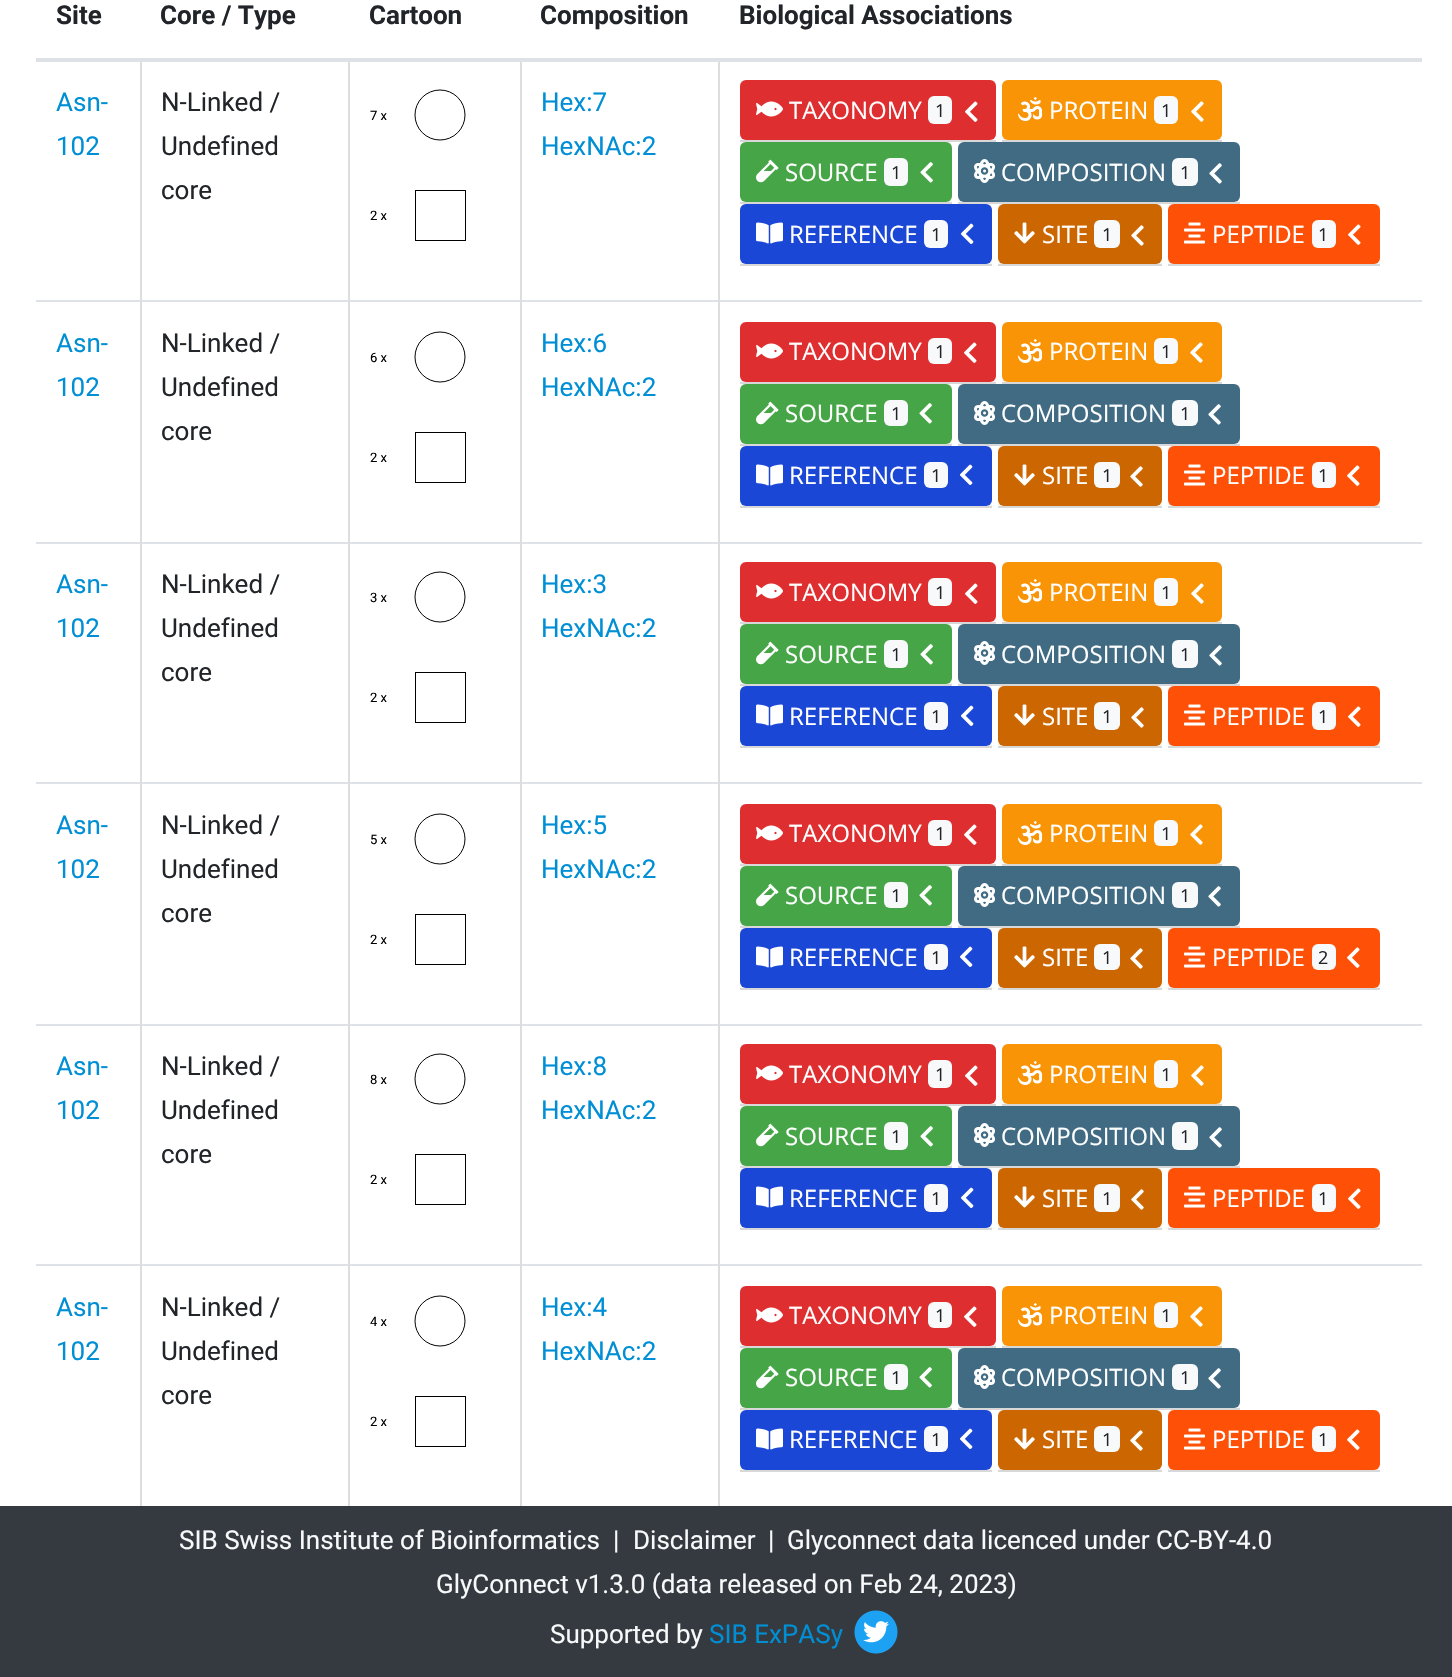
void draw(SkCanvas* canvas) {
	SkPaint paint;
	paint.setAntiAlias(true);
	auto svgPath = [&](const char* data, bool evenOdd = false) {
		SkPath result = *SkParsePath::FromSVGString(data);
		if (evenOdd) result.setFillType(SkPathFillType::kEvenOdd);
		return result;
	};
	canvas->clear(0xffffffff);
	SkFont f1(fontMgr->matchFamilyStyle("Roboto", SkFontStyle::Bold()), 26);
	f1.setSubpixel(true);
	paint.setColor(0xff212529);
	canvas->drawString("Site", 56, 24, f1, paint);
	canvas->drawString("Core / Type", 160, 24, f1, paint);
	canvas->drawString("Cartoon", 369, 24, f1, paint);
	canvas->drawString("Composition", 540, 24, f1, paint);
	paint.setColor(0xffdee2e6);
	canvas->drawRect(SkRect::MakeXYWH(718, 300, 704, 2), paint);
	canvas->drawRect(SkRect::MakeXYWH(718, 542, 704, 2), paint);
	canvas->drawRect(SkRect::MakeXYWH(718, 782, 704, 2), paint);
	canvas->drawRect(SkRect::MakeXYWH(718, 1024, 704, 2), paint);
	canvas->drawRect(SkRect::MakeXYWH(718, 1264, 704, 2), paint);
	paint.setColor(0xffdddddd);
	canvas->drawRect(SkRect::MakeXYWH(718, 1264, 2, 244), paint);
	paint.setColor(0xffdee2e6);
	canvas->drawRect(SkRect::MakeXYWH(520, 1264, 200, 2), paint);
	paint.setColor(0xffdddddd);
	canvas->drawRect(SkRect::MakeXYWH(718, 1024, 2, 242), paint);
	paint.setColor(0xffdee2e6);
	canvas->drawRect(SkRect::MakeXYWH(520, 1024, 200, 2), paint);
	paint.setColor(0xffdddddd);
	canvas->drawRect(SkRect::MakeXYWH(718, 782, 2, 244), paint);
	paint.setColor(0xffdee2e6);
	canvas->drawRect(SkRect::MakeXYWH(520, 782, 200, 2), paint);
	paint.setColor(0xffdddddd);
	canvas->drawRect(SkRect::MakeXYWH(718, 542, 2, 242), paint);
	paint.setColor(0xffdee2e6);
	canvas->drawRect(SkRect::MakeXYWH(520, 542, 200, 2), paint);
	paint.setColor(0xffdddddd);
	canvas->drawRect(SkRect::MakeXYWH(718, 300, 2, 244), paint);
	paint.setColor(0xffdee2e6);
	canvas->drawRect(SkRect::MakeXYWH(520, 300, 200, 2), paint);
	paint.setColor(0xffdddddd);
	canvas->drawRect(SkRect::MakeXYWH(520, 1264, 2, 244), paint);
	paint.setColor(0xffdee2e6);
	canvas->drawRect(SkRect::MakeXYWH(348, 1264, 174, 2), paint);
	paint.setColor(0xffdddddd);
	canvas->drawRect(SkRect::MakeXYWH(520, 1024, 2, 242), paint);
	paint.setColor(0xffdee2e6);
	canvas->drawRect(SkRect::MakeXYWH(348, 1024, 174, 2), paint);
	paint.setColor(0xffdddddd);
	canvas->drawRect(SkRect::MakeXYWH(520, 782, 2, 244), paint);
	paint.setColor(0xffdee2e6);
	canvas->drawRect(SkRect::MakeXYWH(348, 782, 174, 2), paint);
	paint.setColor(0xffdddddd);
	canvas->drawRect(SkRect::MakeXYWH(520, 542, 2, 242), paint);
	paint.setColor(0xffdee2e6);
	canvas->drawRect(SkRect::MakeXYWH(348, 542, 174, 2), paint);
	paint.setColor(0xffdddddd);
	canvas->drawRect(SkRect::MakeXYWH(520, 300, 2, 244), paint);
	paint.setColor(0xffdee2e6);
	canvas->drawRect(SkRect::MakeXYWH(348, 300, 174, 2), paint);
	paint.setColor(0xffdddddd);
	canvas->drawRect(SkRect::MakeXYWH(348, 1264, 2, 244), paint);
	paint.setColor(0xffdee2e6);
	canvas->drawRect(SkRect::MakeXYWH(140, 1264, 210, 2), paint);
	paint.setColor(0xffdddddd);
	canvas->drawRect(SkRect::MakeXYWH(348, 1024, 2, 242), paint);
	paint.setColor(0xffdee2e6);
	canvas->drawRect(SkRect::MakeXYWH(140, 1024, 210, 2), paint);
	paint.setColor(0xffdddddd);
	canvas->drawRect(SkRect::MakeXYWH(348, 782, 2, 244), paint);
	paint.setColor(0xffdee2e6);
	canvas->drawRect(SkRect::MakeXYWH(140, 782, 210, 2), paint);
	paint.setColor(0xffdddddd);
	canvas->drawRect(SkRect::MakeXYWH(348, 542, 2, 242), paint);
	paint.setColor(0xffdee2e6);
	canvas->drawRect(SkRect::MakeXYWH(140, 542, 210, 2), paint);
	paint.setColor(0xffdddddd);
	canvas->drawRect(SkRect::MakeXYWH(348, 300, 2, 244), paint);
	paint.setColor(0xffdee2e6);
	canvas->drawRect(SkRect::MakeXYWH(140, 300, 210, 2), paint);
	paint.setColor(0xffdddddd);
	canvas->drawRect(SkRect::MakeXYWH(140, 1264, 2, 244), paint);
	paint.setColor(0xffdee2e6);
	canvas->drawRect(SkRect::MakeXYWH(36, 1264, 106, 2), paint);
	paint.setColor(0xffdddddd);
	canvas->drawRect(SkRect::MakeXYWH(140, 1024, 2, 242), paint);
	paint.setColor(0xffdee2e6);
	canvas->drawRect(SkRect::MakeXYWH(36, 1024, 106, 2), paint);
	paint.setColor(0xffdddddd);
	canvas->drawRect(SkRect::MakeXYWH(140, 782, 2, 244), paint);
	paint.setColor(0xffdee2e6);
	canvas->drawRect(SkRect::MakeXYWH(36, 782, 106, 2), paint);
	paint.setColor(0xffdddddd);
	canvas->drawRect(SkRect::MakeXYWH(140, 542, 2, 242), paint);
	paint.setColor(0xffdee2e6);
	canvas->drawRect(SkRect::MakeXYWH(36, 542, 106, 2), paint);
	paint.setColor(0xffdddddd);
	canvas->drawRect(SkRect::MakeXYWH(140, 300, 2, 244), paint);
	paint.setColor(0xffdee2e6);
	canvas->drawRect(SkRect::MakeXYWH(36, 300, 106, 2), paint);
	paint.setColor(0xffdddddd);
	canvas->drawRect(SkRect::MakeXYWH(140, 58, 2, 244), paint);
	canvas->drawRect(SkRect::MakeXYWH(348, 58, 2, 244), paint);
	canvas->drawRect(SkRect::MakeXYWH(520, 58, 2, 244), paint);
	canvas->drawRect(SkRect::MakeXYWH(718, 58, 2, 244), paint);
	paint.setColor(0xffdee2e6);
	canvas->drawRect(SkRect::MakeXYWH(36, 58, 1386, 4), paint);
	paint.setColor(0xff212529);
	canvas->drawString("Biological Associations", 739, 24, f1, paint);
	SkFont f2(fontMgr->matchFamilyStyle("Roboto", SkFontStyle::Normal()), 26);
	f2.setSubpixel(true);
	paint.setColor(0xff008fd5);
	canvas->drawString("Asn-", 56, 111, f2, paint);
	canvas->drawString("102", 56, 155, f2, paint);
	paint.setColor(0xff212529);
	canvas->drawString("N-Linked /", 161, 111, f2, paint);
	canvas->drawString("Undefined", 161, 155, f2, paint);
	canvas->drawString("core", 161, 199, f2, paint);
	SkFont f3(fontMgr->matchFamilyStyle("Roboto", SkFontStyle::Normal()), 13);
	f3.setSubpixel(true);
	paint.setColor(0xff000000);
	canvas->drawString("7 x", 370, 120, f3, paint);
	paint.setStroke(true);
	paint.setStrokeWidth(1);
	canvas->drawCircle(440, 115, 25, paint);
	paint.setStroke(false);
	canvas->drawString("2 x", 370, 220, f3, paint);
	paint.setStroke(true);
	canvas->drawRect(SkRect::MakeXYWH(415.5, 190.5, 50, 50), paint);
	paint.setStroke(false);
	paint.setColor(0xff008fd5);
	canvas->drawString("Hex:7", 541, 111, f2, paint);
	canvas->drawString("HexNAc:2", 541, 155, f2, paint);
	paint.setColor(0xfff7f7f7);
	canvas->drawPath(svgPath("M744 80H992C994 80 996 82 996 84V142H740V84C740 82 742 80 744 80Z"), paint);
	paint.setColor(0xffd8d8d8);
	canvas->drawRect(SkRect::MakeXYWH(740, 140, 256, 2), paint);
	paint.setColor(0xffdf2e30);
	canvas->drawRoundRect(SkRect::MakeXYWH(740, 80, 256, 60), 6, 6, paint);
	canvas->drawImageRect(SkImages::DeferredFromEncodedData(SkData::MakeFromFileName("img1.png")), SkRect::MakeXYWH(756, 101, 27, 16), SkSamplingOptions());
	SkFont f4(fontMgr->matchFamilyStyle("Open Sans", SkFontStyle::Normal()), 24);
	f4.setSubpixel(true);
	paint.setColor(0xffffffff);
	canvas->drawString("TAXONOMY", 789, 119, f4, paint);
	paint.setColor(0xfff8f9fa);
	canvas->drawRoundRect(SkRect::MakeXYWH(928, 96, 24, 28), 6, 6, paint);
	SkFont f5(fontMgr->matchFamilyStyle("Open Sans", SkFontStyle::Normal()), 18);
	f5.setSubpixel(true);
	paint.setColor(0xff212529);
	canvas->drawString("1", 935, 117, f5, paint);
	canvas->drawImageRect(SkImages::DeferredFromEncodedData(SkData::MakeFromFileName("img2.png")), SkRect::MakeXYWH(965, 101, 13, 21), SkSamplingOptions());
	paint.setColor(0xfff7f7f7);
	canvas->drawPath(svgPath("M1006 80H1218C1220 80 1222 82 1222 84V142H1002V84C1002 82 1004 80 1006 80Z"), paint);
	paint.setColor(0xffd8d8d8);
	canvas->drawRect(SkRect::MakeXYWH(1002, 140, 220, 2), paint);
	paint.setColor(0xfff89406);
	canvas->drawRoundRect(SkRect::MakeXYWH(1002, 80, 220, 60), 6, 6, paint);
	canvas->drawImageRect(SkImages::DeferredFromEncodedData(SkData::MakeFromFileName("img3.png")), SkRect::MakeXYWH(1018, 97, 25, 24), SkSamplingOptions());
	paint.setColor(0xffffffff);
	canvas->drawString("PROTEIN", 1049, 119, f4, paint);
	paint.setColor(0xfff8f9fa);
	canvas->drawRoundRect(SkRect::MakeXYWH(1154, 96, 24, 28), 6, 6, paint);
	paint.setColor(0xff212529);
	canvas->drawString("1", 1161, 117, f5, paint);
	canvas->drawImageRect(SkImages::DeferredFromEncodedData(SkData::MakeFromFileName("img4.png")), SkRect::MakeXYWH(1191, 101, 13, 21), SkSamplingOptions());
	paint.setColor(0xfff7f7f7);
	canvas->drawPath(svgPath("M744 142H948C950 142 952 144 952 146V204H740V146C740 144 742 142 744 142Z"), paint);
	paint.setColor(0xffd8d8d8);
	canvas->drawRect(SkRect::MakeXYWH(740, 202, 212, 2), paint);
	paint.setColor(0xff46a546);
	canvas->drawRoundRect(SkRect::MakeXYWH(740, 142, 212, 60), 6, 6, paint);
	canvas->drawImageRect(SkImages::DeferredFromEncodedData(SkData::MakeFromFileName("img5.png")), SkRect::MakeXYWH(756, 159, 23, 24), SkSamplingOptions());
	paint.setColor(0xffffffff);
	canvas->drawString("SOURCE", 785, 181, f4, paint);
	paint.setColor(0xfff8f9fa);
	canvas->drawRoundRect(SkRect::MakeXYWH(884, 158, 24, 28), 6, 6, paint);
	paint.setColor(0xff212529);
	canvas->drawString("1", 891, 179, f5, paint);
	canvas->drawImageRect(SkImages::DeferredFromEncodedData(SkData::MakeFromFileName("img6.png")), SkRect::MakeXYWH(920, 162, 13, 21), SkSamplingOptions());
	paint.setColor(0xfff7f7f7);
	canvas->drawPath(svgPath("M962 142H1236C1238 142 1240 144 1240 146V204H958V146C958 144 960 142 962 142Z"), paint);
	paint.setColor(0xffd8d8d8);
	canvas->drawRect(SkRect::MakeXYWH(958, 202, 282, 2), paint);
	paint.setColor(0xff406b83);
	canvas->drawRoundRect(SkRect::MakeXYWH(958, 142, 282, 60), 6, 6, paint);
	canvas->drawImageRect(SkImages::DeferredFromEncodedData(SkData::MakeFromFileName("img7.png")), SkRect::MakeXYWH(974, 159, 21, 24), SkSamplingOptions());
	paint.setColor(0xffffffff);
	canvas->drawString("COMPOSITION", 1001, 181, f4, paint);
	paint.setColor(0xfff8f9fa);
	canvas->drawRoundRect(SkRect::MakeXYWH(1172, 158, 26, 28), 6, 6, paint);
	paint.setColor(0xff212529);
	canvas->drawString("1", 1180, 179, f5, paint);
	canvas->drawImageRect(SkImages::DeferredFromEncodedData(SkData::MakeFromFileName("img8.png")), SkRect::MakeXYWH(1209, 163, 13, 21), SkSamplingOptions());
	paint.setColor(0xfff7f7f7);
	canvas->drawPath(svgPath("M744 204H988C990 204 992 206 992 208V266H740V208C740 206 742 204 744 204Z"), paint);
	paint.setColor(0xffd8d8d8);
	canvas->drawRect(SkRect::MakeXYWH(740, 264, 252, 2), paint);
	paint.setColor(0xff1a47d5);
	canvas->drawRoundRect(SkRect::MakeXYWH(740, 204, 252, 60), 6, 6, paint);
	canvas->drawImageRect(SkImages::DeferredFromEncodedData(SkData::MakeFromFileName("img9.png")), SkRect::MakeXYWH(756, 222, 27, 22), SkSamplingOptions());
	paint.setColor(0xffffffff);
	canvas->drawString("REFERENCE", 789, 243, f4, paint);
	paint.setColor(0xfff8f9fa);
	canvas->drawRoundRect(SkRect::MakeXYWH(924, 220, 24, 28), 6, 6, paint);
	paint.setColor(0xff212529);
	canvas->drawString("1", 931, 241, f5, paint);
	canvas->drawImageRect(SkImages::DeferredFromEncodedData(SkData::MakeFromFileName("img10.png")), SkRect::MakeXYWH(960, 223, 14, 21), SkSamplingOptions());
	paint.setColor(0xfff7f7f7);
	canvas->drawPath(svgPath("M1002 204H1158C1160 204 1162 206 1162 208V266H998V208C998 206 1000 204 1002 204Z"), paint);
	paint.setColor(0xffd8d8d8);
	canvas->drawRect(SkRect::MakeXYWH(998, 264, 164, 2), paint);
	paint.setColor(0xffcc6600);
	canvas->drawRoundRect(SkRect::MakeXYWH(998, 204, 164, 60), 6, 6, paint);
	canvas->drawImageRect(SkImages::DeferredFromEncodedData(SkData::MakeFromFileName("img11.png")), SkRect::MakeXYWH(1014, 222, 21, 22), SkSamplingOptions());
	paint.setColor(0xffffffff);
	canvas->drawString("SITE", 1042, 243, f4, paint);
	paint.setColor(0xfff8f9fa);
	canvas->drawRoundRect(SkRect::MakeXYWH(1094, 220, 26, 28), 6, 6, paint);
	paint.setColor(0xff212529);
	canvas->drawString("1", 1102, 241, f5, paint);
	canvas->drawImageRect(SkImages::DeferredFromEncodedData(SkData::MakeFromFileName("img12.png")), SkRect::MakeXYWH(1131, 225, 13, 21), SkSamplingOptions());
	paint.setColor(0xfff7f7f7);
	canvas->drawPath(svgPath("M1172 204H1376C1378 204 1380 206 1380 208V266H1168V208C1168 206 1170 204 1172 204Z"), paint);
	paint.setColor(0xffd8d8d8);
	canvas->drawRect(SkRect::MakeXYWH(1168, 264, 212, 2), paint);
	paint.setColor(0xfffe5006);
	canvas->drawRoundRect(SkRect::MakeXYWH(1168, 204, 212, 60), 6, 6, paint);
	canvas->drawImageRect(SkImages::DeferredFromEncodedData(SkData::MakeFromFileName("img13.png")), SkRect::MakeXYWH(1184, 222, 21, 22), SkSamplingOptions());
	paint.setColor(0xffffffff);
	canvas->drawString("PEPTIDE", 1212, 243, f4, paint);
	paint.setColor(0xfff8f9fa);
	canvas->drawRoundRect(SkRect::MakeXYWH(1312, 220, 24, 28), 6, 6, paint);
	paint.setColor(0xff212529);
	canvas->drawString("1", 1318, 241, f5, paint);
	canvas->drawImageRect(SkImages::DeferredFromEncodedData(SkData::MakeFromFileName("img14.png")), SkRect::MakeXYWH(1348, 224, 13, 21), SkSamplingOptions());
	paint.setColor(0xff008fd5);
	canvas->drawString("Asn-", 56, 352, f2, paint);
	canvas->drawString("102", 56, 396, f2, paint);
	paint.setColor(0xff212529);
	canvas->drawString("N-Linked /", 161, 352, f2, paint);
	canvas->drawString("Undefined", 161, 396, f2, paint);
	canvas->drawString("core", 161, 440, f2, paint);
	paint.setColor(0xff000000);
	canvas->drawString("6 x", 370, 362, f3, paint);
	paint.setStroke(true);
	canvas->drawCircle(440, 357, 25, paint);
	paint.setStroke(false);
	canvas->drawString("2 x", 370, 462, f3, paint);
	paint.setStroke(true);
	canvas->drawRect(SkRect::MakeXYWH(415.5, 432.5, 50, 50), paint);
	paint.setStroke(false);
	paint.setColor(0xff008fd5);
	canvas->drawString("Hex:6", 541, 352, f2, paint);
	canvas->drawString("HexNAc:2", 541, 396, f2, paint);
	paint.setColor(0xfff7f7f7);
	canvas->drawPath(svgPath("M744 322H992C994 322 996 324 996 326V384H740V326C740 324 742 322 744 322Z"), paint);
	paint.setColor(0xffd8d8d8);
	canvas->drawRect(SkRect::MakeXYWH(740, 382, 256, 2), paint);
	paint.setColor(0xffdf2e30);
	canvas->drawRoundRect(SkRect::MakeXYWH(740, 322, 256, 60), 6, 6, paint);
	canvas->drawImageRect(SkImages::DeferredFromEncodedData(SkData::MakeFromFileName("img1.png")), SkRect::MakeXYWH(756, 343, 27, 16), SkSamplingOptions());
	paint.setColor(0xffffffff);
	canvas->drawString("TAXONOMY", 789, 360, f4, paint);
	paint.setColor(0xfff8f9fa);
	canvas->drawRoundRect(SkRect::MakeXYWH(928, 338, 24, 26), 6, 6, paint);
	paint.setColor(0xff212529);
	canvas->drawString("1", 935, 358, f5, paint);
	canvas->drawImageRect(SkImages::DeferredFromEncodedData(SkData::MakeFromFileName("img2.png")), SkRect::MakeXYWH(964, 342, 13, 21), SkSamplingOptions());
	paint.setColor(0xfff7f7f7);
	canvas->drawPath(svgPath("M1006 322H1218C1220 322 1222 324 1222 326V384H1002V326C1002 324 1004 322 1006 322Z"), paint);
	paint.setColor(0xffd8d8d8);
	canvas->drawRect(SkRect::MakeXYWH(1002, 382, 220, 2), paint);
	paint.setColor(0xfff89406);
	canvas->drawRoundRect(SkRect::MakeXYWH(1002, 322, 220, 60), 6, 6, paint);
	canvas->drawImageRect(SkImages::DeferredFromEncodedData(SkData::MakeFromFileName("img3.png")), SkRect::MakeXYWH(1018, 339, 25, 24), SkSamplingOptions());
	paint.setColor(0xffffffff);
	canvas->drawString("PROTEIN", 1049, 360, f4, paint);
	paint.setColor(0xfff8f9fa);
	canvas->drawRoundRect(SkRect::MakeXYWH(1154, 338, 24, 26), 6, 6, paint);
	paint.setColor(0xff212529);
	canvas->drawString("1", 1161, 358, f5, paint);
	canvas->drawImageRect(SkImages::DeferredFromEncodedData(SkData::MakeFromFileName("img4.png")), SkRect::MakeXYWH(1190, 342, 13, 21), SkSamplingOptions());
	paint.setColor(0xfff7f7f7);
	canvas->drawPath(svgPath("M744 384H948C950 384 952 386 952 388V446H740V388C740 386 742 384 744 384Z"), paint);
	paint.setColor(0xffd8d8d8);
	canvas->drawRect(SkRect::MakeXYWH(740, 444, 212, 2), paint);
	paint.setColor(0xff46a546);
	canvas->drawRoundRect(SkRect::MakeXYWH(740, 384, 212, 60), 6, 6, paint);
	canvas->drawImageRect(SkImages::DeferredFromEncodedData(SkData::MakeFromFileName("img5.png")), SkRect::MakeXYWH(756, 401, 23, 24), SkSamplingOptions());
	paint.setColor(0xffffffff);
	canvas->drawString("SOURCE", 785, 422, f4, paint);
	paint.setColor(0xfff8f9fa);
	canvas->drawRoundRect(SkRect::MakeXYWH(884, 400, 24, 26), 6, 6, paint);
	paint.setColor(0xff212529);
	canvas->drawString("1", 891, 420, f5, paint);
	canvas->drawImageRect(SkImages::DeferredFromEncodedData(SkData::MakeFromFileName("img6.png")), SkRect::MakeXYWH(919, 403, 13, 21), SkSamplingOptions());
	paint.setColor(0xfff7f7f7);
	canvas->drawPath(svgPath("M962 384H1236C1238 384 1240 386 1240 388V446H958V388C958 386 960 384 962 384Z"), paint);
	paint.setColor(0xffd8d8d8);
	canvas->drawRect(SkRect::MakeXYWH(958, 444, 282, 2), paint);
	paint.setColor(0xff406b83);
	canvas->drawRoundRect(SkRect::MakeXYWH(958, 384, 282, 60), 6, 6, paint);
	canvas->drawImageRect(SkImages::DeferredFromEncodedData(SkData::MakeFromFileName("img7.png")), SkRect::MakeXYWH(974, 401, 21, 24), SkSamplingOptions());
	paint.setColor(0xffffffff);
	canvas->drawString("COMPOSITION", 1001, 422, f4, paint);
	paint.setColor(0xfff8f9fa);
	canvas->drawRoundRect(SkRect::MakeXYWH(1172, 400, 26, 26), 6, 6, paint);
	paint.setColor(0xff212529);
	canvas->drawString("1", 1180, 420, f5, paint);
	canvas->drawImageRect(SkImages::DeferredFromEncodedData(SkData::MakeFromFileName("img8.png")), SkRect::MakeXYWH(1208, 404, 13, 21), SkSamplingOptions());
	paint.setColor(0xfff7f7f7);
	canvas->drawPath(svgPath("M744 446H988C990 446 992 448 992 450V508H740V450C740 448 742 446 744 446Z"), paint);
	paint.setColor(0xffd8d8d8);
	canvas->drawRect(SkRect::MakeXYWH(740, 506, 252, 2), paint);
	paint.setColor(0xff1a47d5);
	canvas->drawRoundRect(SkRect::MakeXYWH(740, 446, 252, 60), 6, 6, paint);
	canvas->drawImageRect(SkImages::DeferredFromEncodedData(SkData::MakeFromFileName("img9.png")), SkRect::MakeXYWH(756, 464, 27, 22), SkSamplingOptions());
	paint.setColor(0xffffffff);
	canvas->drawString("REFERENCE", 789, 484, f4, paint);
	paint.setColor(0xfff8f9fa);
	canvas->drawRoundRect(SkRect::MakeXYWH(924, 462, 24, 26), 6, 6, paint);
	paint.setColor(0xff212529);
	canvas->drawString("1", 931, 482, f5, paint);
	canvas->drawImageRect(SkImages::DeferredFromEncodedData(SkData::MakeFromFileName("img10.png")), SkRect::MakeXYWH(959, 464, 14, 21), SkSamplingOptions());
	paint.setColor(0xfff7f7f7);
	canvas->drawPath(svgPath("M1002 446H1158C1160 446 1162 448 1162 450V508H998V450C998 448 1000 446 1002 446Z"), paint);
	paint.setColor(0xffd8d8d8);
	canvas->drawRect(SkRect::MakeXYWH(998, 506, 164, 2), paint);
	paint.setColor(0xffcc6600);
	canvas->drawRoundRect(SkRect::MakeXYWH(998, 446, 164, 60), 6, 6, paint);
	canvas->drawImageRect(SkImages::DeferredFromEncodedData(SkData::MakeFromFileName("img11.png")), SkRect::MakeXYWH(1014, 464, 21, 22), SkSamplingOptions());
	paint.setColor(0xffffffff);
	canvas->drawString("SITE", 1042, 484, f4, paint);
	paint.setColor(0xfff8f9fa);
	canvas->drawRoundRect(SkRect::MakeXYWH(1094, 462, 26, 26), 6, 6, paint);
	paint.setColor(0xff212529);
	canvas->drawString("1", 1102, 482, f5, paint);
	canvas->drawImageRect(SkImages::DeferredFromEncodedData(SkData::MakeFromFileName("img12.png")), SkRect::MakeXYWH(1130, 466, 13, 21), SkSamplingOptions());
	paint.setColor(0xfff7f7f7);
	canvas->drawPath(svgPath("M1172 446H1376C1378 446 1380 448 1380 450V508H1168V450C1168 448 1170 446 1172 446Z"), paint);
	paint.setColor(0xffd8d8d8);
	canvas->drawRect(SkRect::MakeXYWH(1168, 506, 212, 2), paint);
	paint.setColor(0xfffe5006);
	canvas->drawRoundRect(SkRect::MakeXYWH(1168, 446, 212, 60), 6, 6, paint);
	canvas->drawImageRect(SkImages::DeferredFromEncodedData(SkData::MakeFromFileName("img13.png")), SkRect::MakeXYWH(1184, 464, 21, 22), SkSamplingOptions());
	paint.setColor(0xffffffff);
	canvas->drawString("PEPTIDE", 1212, 484, f4, paint);
	paint.setColor(0xfff8f9fa);
	canvas->drawRoundRect(SkRect::MakeXYWH(1312, 462, 24, 26), 6, 6, paint);
	paint.setColor(0xff212529);
	canvas->drawString("1", 1318, 482, f5, paint);
	canvas->drawImageRect(SkImages::DeferredFromEncodedData(SkData::MakeFromFileName("img14.png")), SkRect::MakeXYWH(1347, 465, 13, 21), SkSamplingOptions());
	paint.setColor(0xff008fd5);
	canvas->drawString("Asn-", 56, 593, f2, paint);
	canvas->drawString("102", 56, 637, f2, paint);
	paint.setColor(0xff212529);
	canvas->drawString("N-Linked /", 161, 593, f2, paint);
	canvas->drawString("Undefined", 161, 637, f2, paint);
	canvas->drawString("core", 161, 681, f2, paint);
	paint.setColor(0xff000000);
	canvas->drawString("3 x", 370, 602, f3, paint);
	paint.setStroke(true);
	canvas->drawCircle(440, 597, 25, paint);
	paint.setStroke(false);
	canvas->drawString("2 x", 370, 702, f3, paint);
	paint.setStroke(true);
	canvas->drawRect(SkRect::MakeXYWH(415.5, 672.5, 50, 50), paint);
	paint.setStroke(false);
	paint.setColor(0xff008fd5);
	canvas->drawString("Hex:3", 541, 593, f2, paint);
	canvas->drawString("HexNAc:2", 541, 637, f2, paint);
	paint.setColor(0xfff7f7f7);
	canvas->drawPath(svgPath("M744 562H992C994 562 996 564 996 566V624H740V566C740 564 742 562 744 562Z"), paint);
	paint.setColor(0xffd8d8d8);
	canvas->drawRect(SkRect::MakeXYWH(740, 622, 256, 2), paint);
	paint.setColor(0xffdf2e30);
	canvas->drawRoundRect(SkRect::MakeXYWH(740, 562, 256, 60), 6, 6, paint);
	canvas->drawImageRect(SkImages::DeferredFromEncodedData(SkData::MakeFromFileName("img1.png")), SkRect::MakeXYWH(756, 583, 27, 16), SkSamplingOptions());
	paint.setColor(0xffffffff);
	canvas->drawString("TAXONOMY", 789, 601, f4, paint);
	paint.setColor(0xfff8f9fa);
	canvas->drawRoundRect(SkRect::MakeXYWH(928, 578, 24, 28), 6, 6, paint);
	paint.setColor(0xff212529);
	canvas->drawString("1", 935, 599, f5, paint);
	canvas->drawImageRect(SkImages::DeferredFromEncodedData(SkData::MakeFromFileName("img2.png")), SkRect::MakeXYWH(965, 583, 13, 21), SkSamplingOptions());
	paint.setColor(0xfff7f7f7);
	canvas->drawPath(svgPath("M1006 562H1218C1220 562 1222 564 1222 566V624H1002V566C1002 564 1004 562 1006 562Z"), paint);
	paint.setColor(0xffd8d8d8);
	canvas->drawRect(SkRect::MakeXYWH(1002, 622, 220, 2), paint);
	paint.setColor(0xfff89406);
	canvas->drawRoundRect(SkRect::MakeXYWH(1002, 562, 220, 60), 6, 6, paint);
	canvas->drawImageRect(SkImages::DeferredFromEncodedData(SkData::MakeFromFileName("img3.png")), SkRect::MakeXYWH(1018, 579, 25, 24), SkSamplingOptions());
	paint.setColor(0xffffffff);
	canvas->drawString("PROTEIN", 1049, 601, f4, paint);
	paint.setColor(0xfff8f9fa);
	canvas->drawRoundRect(SkRect::MakeXYWH(1154, 578, 24, 28), 6, 6, paint);
	paint.setColor(0xff212529);
	canvas->drawString("1", 1161, 599, f5, paint);
	canvas->drawImageRect(SkImages::DeferredFromEncodedData(SkData::MakeFromFileName("img4.png")), SkRect::MakeXYWH(1191, 583, 13, 21), SkSamplingOptions());
	paint.setColor(0xfff7f7f7);
	canvas->drawPath(svgPath("M744 624H948C950 624 952 626 952 628V686H740V628C740 626 742 624 744 624Z"), paint);
	paint.setColor(0xffd8d8d8);
	canvas->drawRect(SkRect::MakeXYWH(740, 684, 212, 2), paint);
	paint.setColor(0xff46a546);
	canvas->drawRoundRect(SkRect::MakeXYWH(740, 624, 212, 60), 6, 6, paint);
	canvas->drawImageRect(SkImages::DeferredFromEncodedData(SkData::MakeFromFileName("img5.png")), SkRect::MakeXYWH(756, 641, 23, 24), SkSamplingOptions());
	paint.setColor(0xffffffff);
	canvas->drawString("SOURCE", 785, 663, f4, paint);
	paint.setColor(0xfff8f9fa);
	canvas->drawRoundRect(SkRect::MakeXYWH(884, 640, 24, 28), 6, 6, paint);
	paint.setColor(0xff212529);
	canvas->drawString("1", 891, 661, f5, paint);
	canvas->drawImageRect(SkImages::DeferredFromEncodedData(SkData::MakeFromFileName("img6.png")), SkRect::MakeXYWH(920, 644, 13, 21), SkSamplingOptions());
	paint.setColor(0xfff7f7f7);
	canvas->drawPath(svgPath("M962 624H1236C1238 624 1240 626 1240 628V686H958V628C958 626 960 624 962 624Z"), paint);
	paint.setColor(0xffd8d8d8);
	canvas->drawRect(SkRect::MakeXYWH(958, 684, 282, 2), paint);
	paint.setColor(0xff406b83);
	canvas->drawRoundRect(SkRect::MakeXYWH(958, 624, 282, 60), 6, 6, paint);
	canvas->drawImageRect(SkImages::DeferredFromEncodedData(SkData::MakeFromFileName("img7.png")), SkRect::MakeXYWH(974, 641, 21, 24), SkSamplingOptions());
	paint.setColor(0xffffffff);
	canvas->drawString("COMPOSITION", 1001, 663, f4, paint);
	paint.setColor(0xfff8f9fa);
	canvas->drawRoundRect(SkRect::MakeXYWH(1172, 640, 26, 28), 6, 6, paint);
	paint.setColor(0xff212529);
	canvas->drawString("1", 1180, 661, f5, paint);
	canvas->drawImageRect(SkImages::DeferredFromEncodedData(SkData::MakeFromFileName("img8.png")), SkRect::MakeXYWH(1209, 645, 13, 21), SkSamplingOptions());
	paint.setColor(0xfff7f7f7);
	canvas->drawPath(svgPath("M744 686H988C990 686 992 688 992 690V748H740V690C740 688 742 686 744 686Z"), paint);
	paint.setColor(0xffd8d8d8);
	canvas->drawRect(SkRect::MakeXYWH(740, 746, 252, 2), paint);
	paint.setColor(0xff1a47d5);
	canvas->drawRoundRect(SkRect::MakeXYWH(740, 686, 252, 60), 6, 6, paint);
	canvas->drawImageRect(SkImages::DeferredFromEncodedData(SkData::MakeFromFileName("img9.png")), SkRect::MakeXYWH(756, 704, 27, 22), SkSamplingOptions());
	paint.setColor(0xffffffff);
	canvas->drawString("REFERENCE", 789, 725, f4, paint);
	paint.setColor(0xfff8f9fa);
	canvas->drawRoundRect(SkRect::MakeXYWH(924, 702, 24, 28), 6, 6, paint);
	paint.setColor(0xff212529);
	canvas->drawString("1", 931, 723, f5, paint);
	canvas->drawImageRect(SkImages::DeferredFromEncodedData(SkData::MakeFromFileName("img10.png")), SkRect::MakeXYWH(960, 705, 14, 21), SkSamplingOptions());
	paint.setColor(0xfff7f7f7);
	canvas->drawPath(svgPath("M1002 686H1158C1160 686 1162 688 1162 690V748H998V690C998 688 1000 686 1002 686Z"), paint);
	paint.setColor(0xffd8d8d8);
	canvas->drawRect(SkRect::MakeXYWH(998, 746, 164, 2), paint);
	paint.setColor(0xffcc6600);
	canvas->drawRoundRect(SkRect::MakeXYWH(998, 686, 164, 60), 6, 6, paint);
	canvas->drawImageRect(SkImages::DeferredFromEncodedData(SkData::MakeFromFileName("img11.png")), SkRect::MakeXYWH(1014, 704, 21, 22), SkSamplingOptions());
	paint.setColor(0xffffffff);
	canvas->drawString("SITE", 1042, 725, f4, paint);
	paint.setColor(0xfff8f9fa);
	canvas->drawRoundRect(SkRect::MakeXYWH(1094, 702, 26, 28), 6, 6, paint);
	paint.setColor(0xff212529);
	canvas->drawString("1", 1102, 723, f5, paint);
	canvas->drawImageRect(SkImages::DeferredFromEncodedData(SkData::MakeFromFileName("img12.png")), SkRect::MakeXYWH(1131, 707, 13, 21), SkSamplingOptions());
	paint.setColor(0xfff7f7f7);
	canvas->drawPath(svgPath("M1172 686H1376C1378 686 1380 688 1380 690V748H1168V690C1168 688 1170 686 1172 686Z"), paint);
	paint.setColor(0xffd8d8d8);
	canvas->drawRect(SkRect::MakeXYWH(1168, 746, 212, 2), paint);
	paint.setColor(0xfffe5006);
	canvas->drawRoundRect(SkRect::MakeXYWH(1168, 686, 212, 60), 6, 6, paint);
	canvas->drawImageRect(SkImages::DeferredFromEncodedData(SkData::MakeFromFileName("img13.png")), SkRect::MakeXYWH(1184, 704, 21, 22), SkSamplingOptions());
	paint.setColor(0xffffffff);
	canvas->drawString("PEPTIDE", 1212, 725, f4, paint);
	paint.setColor(0xfff8f9fa);
	canvas->drawRoundRect(SkRect::MakeXYWH(1312, 702, 24, 28), 6, 6, paint);
	paint.setColor(0xff212529);
	canvas->drawString("1", 1318, 723, f5, paint);
	canvas->drawImageRect(SkImages::DeferredFromEncodedData(SkData::MakeFromFileName("img14.png")), SkRect::MakeXYWH(1348, 706, 13, 21), SkSamplingOptions());
	paint.setColor(0xff008fd5);
	canvas->drawString("Asn-", 56, 834, f2, paint);
	canvas->drawString("102", 56, 878, f2, paint);
	paint.setColor(0xff212529);
	canvas->drawString("N-Linked /", 161, 834, f2, paint);
	canvas->drawString("Undefined", 161, 878, f2, paint);
	canvas->drawString("core", 161, 922, f2, paint);
	paint.setColor(0xff000000);
	canvas->drawString("5 x", 370, 844, f3, paint);
	paint.setStroke(true);
	canvas->drawCircle(440, 839, 25, paint);
	paint.setStroke(false);
	canvas->drawString("2 x", 370, 944, f3, paint);
	paint.setStroke(true);
	canvas->drawRect(SkRect::MakeXYWH(415.5, 914.5, 50, 50), paint);
	paint.setStroke(false);
	paint.setColor(0xff008fd5);
	canvas->drawString("Hex:5", 541, 834, f2, paint);
	canvas->drawString("HexNAc:2", 541, 878, f2, paint);
	paint.setColor(0xfff7f7f7);
	canvas->drawPath(svgPath("M744 804H992C994 804 996 806 996 808V866H740V808C740 806 742 804 744 804Z"), paint);
	paint.setColor(0xffd8d8d8);
	canvas->drawRect(SkRect::MakeXYWH(740, 864, 256, 2), paint);
	paint.setColor(0xffdf2e30);
	canvas->drawRoundRect(SkRect::MakeXYWH(740, 804, 256, 60), 6, 6, paint);
	canvas->drawImageRect(SkImages::DeferredFromEncodedData(SkData::MakeFromFileName("img1.png")), SkRect::MakeXYWH(756, 825, 27, 16), SkSamplingOptions());
	paint.setColor(0xffffffff);
	canvas->drawString("TAXONOMY", 789, 842, f4, paint);
	paint.setColor(0xfff8f9fa);
	canvas->drawRoundRect(SkRect::MakeXYWH(928, 820, 24, 26), 6, 6, paint);
	paint.setColor(0xff212529);
	canvas->drawString("1", 935, 840, f5, paint);
	canvas->drawImageRect(SkImages::DeferredFromEncodedData(SkData::MakeFromFileName("img2.png")), SkRect::MakeXYWH(964, 824, 13, 21), SkSamplingOptions());
	paint.setColor(0xfff7f7f7);
	canvas->drawPath(svgPath("M1006 804H1218C1220 804 1222 806 1222 808V866H1002V808C1002 806 1004 804 1006 804Z"), paint);
	paint.setColor(0xffd8d8d8);
	canvas->drawRect(SkRect::MakeXYWH(1002, 864, 220, 2), paint);
	paint.setColor(0xfff89406);
	canvas->drawRoundRect(SkRect::MakeXYWH(1002, 804, 220, 60), 6, 6, paint);
	canvas->drawImageRect(SkImages::DeferredFromEncodedData(SkData::MakeFromFileName("img3.png")), SkRect::MakeXYWH(1018, 821, 25, 24), SkSamplingOptions());
	paint.setColor(0xffffffff);
	canvas->drawString("PROTEIN", 1049, 842, f4, paint);
	paint.setColor(0xfff8f9fa);
	canvas->drawRoundRect(SkRect::MakeXYWH(1154, 820, 24, 26), 6, 6, paint);
	paint.setColor(0xff212529);
	canvas->drawString("1", 1161, 840, f5, paint);
	canvas->drawImageRect(SkImages::DeferredFromEncodedData(SkData::MakeFromFileName("img4.png")), SkRect::MakeXYWH(1190, 824, 13, 21), SkSamplingOptions());
	paint.setColor(0xfff7f7f7);
	canvas->drawPath(svgPath("M744 866H948C950 866 952 868 952 870V928H740V870C740 868 742 866 744 866Z"), paint);
	paint.setColor(0xffd8d8d8);
	canvas->drawRect(SkRect::MakeXYWH(740, 926, 212, 2), paint);
	paint.setColor(0xff46a546);
	canvas->drawRoundRect(SkRect::MakeXYWH(740, 866, 212, 60), 6, 6, paint);
	canvas->drawImageRect(SkImages::DeferredFromEncodedData(SkData::MakeFromFileName("img5.png")), SkRect::MakeXYWH(756, 883, 23, 24), SkSamplingOptions());
	paint.setColor(0xffffffff);
	canvas->drawString("SOURCE", 785, 904, f4, paint);
	paint.setColor(0xfff8f9fa);
	canvas->drawRoundRect(SkRect::MakeXYWH(884, 882, 24, 26), 6, 6, paint);
	paint.setColor(0xff212529);
	canvas->drawString("1", 891, 902, f5, paint);
	canvas->drawImageRect(SkImages::DeferredFromEncodedData(SkData::MakeFromFileName("img6.png")), SkRect::MakeXYWH(919, 885, 13, 21), SkSamplingOptions());
	paint.setColor(0xfff7f7f7);
	canvas->drawPath(svgPath("M962 866H1236C1238 866 1240 868 1240 870V928H958V870C958 868 960 866 962 866Z"), paint);
	paint.setColor(0xffd8d8d8);
	canvas->drawRect(SkRect::MakeXYWH(958, 926, 282, 2), paint);
	paint.setColor(0xff406b83);
	canvas->drawRoundRect(SkRect::MakeXYWH(958, 866, 282, 60), 6, 6, paint);
	canvas->drawImageRect(SkImages::DeferredFromEncodedData(SkData::MakeFromFileName("img7.png")), SkRect::MakeXYWH(974, 883, 21, 24), SkSamplingOptions());
	paint.setColor(0xffffffff);
	canvas->drawString("COMPOSITION", 1001, 904, f4, paint);
	paint.setColor(0xfff8f9fa);
	canvas->drawRoundRect(SkRect::MakeXYWH(1172, 882, 26, 26), 6, 6, paint);
	paint.setColor(0xff212529);
	canvas->drawString("1", 1180, 902, f5, paint);
	canvas->drawImageRect(SkImages::DeferredFromEncodedData(SkData::MakeFromFileName("img8.png")), SkRect::MakeXYWH(1208, 886, 13, 21), SkSamplingOptions());
	paint.setColor(0xfff7f7f7);
	canvas->drawPath(svgPath("M744 928H988C990 928 992 930 992 932V990H740V932C740 930 742 928 744 928Z"), paint);
	paint.setColor(0xffd8d8d8);
	canvas->drawRect(SkRect::MakeXYWH(740, 988, 252, 2), paint);
	paint.setColor(0xff1a47d5);
	canvas->drawRoundRect(SkRect::MakeXYWH(740, 928, 252, 60), 6, 6, paint);
	canvas->drawImageRect(SkImages::DeferredFromEncodedData(SkData::MakeFromFileName("img9.png")), SkRect::MakeXYWH(756, 946, 27, 22), SkSamplingOptions());
	paint.setColor(0xffffffff);
	canvas->drawString("REFERENCE", 789, 966, f4, paint);
	paint.setColor(0xfff8f9fa);
	canvas->drawRoundRect(SkRect::MakeXYWH(924, 944, 24, 26), 6, 6, paint);
	paint.setColor(0xff212529);
	canvas->drawString("1", 931, 964, f5, paint);
	canvas->drawImageRect(SkImages::DeferredFromEncodedData(SkData::MakeFromFileName("img10.png")), SkRect::MakeXYWH(959, 946, 14, 21), SkSamplingOptions());
	paint.setColor(0xfff7f7f7);
	canvas->drawPath(svgPath("M1002 928H1158C1160 928 1162 930 1162 932V990H998V932C998 930 1000 928 1002 928Z"), paint);
	paint.setColor(0xffd8d8d8);
	canvas->drawRect(SkRect::MakeXYWH(998, 988, 164, 2), paint);
	paint.setColor(0xffcc6600);
	canvas->drawRoundRect(SkRect::MakeXYWH(998, 928, 164, 60), 6, 6, paint);
	canvas->drawImageRect(SkImages::DeferredFromEncodedData(SkData::MakeFromFileName("img11.png")), SkRect::MakeXYWH(1014, 946, 21, 22), SkSamplingOptions());
	paint.setColor(0xffffffff);
	canvas->drawString("SITE", 1042, 966, f4, paint);
	paint.setColor(0xfff8f9fa);
	canvas->drawRoundRect(SkRect::MakeXYWH(1094, 944, 26, 26), 6, 6, paint);
	paint.setColor(0xff212529);
	canvas->drawString("1", 1102, 964, f5, paint);
	canvas->drawImageRect(SkImages::DeferredFromEncodedData(SkData::MakeFromFileName("img12.png")), SkRect::MakeXYWH(1130, 948, 13, 21), SkSamplingOptions());
	paint.setColor(0xfff7f7f7);
	canvas->drawPath(svgPath("M1172 928H1376C1378 928 1380 930 1380 932V990H1168V932C1168 930 1170 928 1172 928Z"), paint);
	paint.setColor(0xffd8d8d8);
	canvas->drawRect(SkRect::MakeXYWH(1168, 988, 212, 2), paint);
	paint.setColor(0xfffe5006);
	canvas->drawRoundRect(SkRect::MakeXYWH(1168, 928, 212, 60), 6, 6, paint);
	canvas->drawImageRect(SkImages::DeferredFromEncodedData(SkData::MakeFromFileName("img13.png")), SkRect::MakeXYWH(1184, 946, 21, 22), SkSamplingOptions());
	paint.setColor(0xffffffff);
	canvas->drawString("PEPTIDE", 1212, 966, f4, paint);
	paint.setColor(0xfff8f9fa);
	canvas->drawRoundRect(SkRect::MakeXYWH(1312, 944, 24, 26), 6, 6, paint);
	paint.setColor(0xff212529);
	canvas->drawString("2", 1318, 964, f5, paint);
	canvas->drawImageRect(SkImages::DeferredFromEncodedData(SkData::MakeFromFileName("img14.png")), SkRect::MakeXYWH(1347, 947, 13, 21), SkSamplingOptions());
	paint.setColor(0xff008fd5);
	canvas->drawString("Asn-", 56, 1075, f2, paint);
	canvas->drawString("102", 56, 1119, f2, paint);
	paint.setColor(0xff212529);
	canvas->drawString("N-Linked /", 161, 1075, f2, paint);
	canvas->drawString("Undefined", 161, 1119, f2, paint);
	canvas->drawString("core", 161, 1163, f2, paint);
	paint.setColor(0xff000000);
	canvas->drawString("8 x", 370, 1084, f3, paint);
	paint.setStroke(true);
	canvas->drawCircle(440, 1079, 25, paint);
	paint.setStroke(false);
	canvas->drawString("2 x", 370, 1184, f3, paint);
	paint.setStroke(true);
	canvas->drawRect(SkRect::MakeXYWH(415.5, 1154.5, 50, 50), paint);
	paint.setStroke(false);
	paint.setColor(0xff008fd5);
	canvas->drawString("Hex:8", 541, 1075, f2, paint);
	canvas->drawString("HexNAc:2", 541, 1119, f2, paint);
	paint.setColor(0xfff7f7f7);
	canvas->drawPath(svgPath("M744 1044H992C994 1044 996 1046 996 1048V1106H740V1048C740 1046 742 1044 744 1044Z"), paint);
	paint.setColor(0xffd8d8d8);
	canvas->drawRect(SkRect::MakeXYWH(740, 1104, 256, 2), paint);
	paint.setColor(0xffdf2e30);
	canvas->drawRoundRect(SkRect::MakeXYWH(740, 1044, 256, 60), 6, 6, paint);
	canvas->drawImageRect(SkImages::DeferredFromEncodedData(SkData::MakeFromFileName("img1.png")), SkRect::MakeXYWH(756, 1065, 27, 16), SkSamplingOptions());
	paint.setColor(0xffffffff);
	canvas->drawString("TAXONOMY", 789, 1083, f4, paint);
	paint.setColor(0xfff8f9fa);
	canvas->drawRoundRect(SkRect::MakeXYWH(928, 1060, 24, 28), 6, 6, paint);
	paint.setColor(0xff212529);
	canvas->drawString("1", 935, 1081, f5, paint);
	canvas->drawImageRect(SkImages::DeferredFromEncodedData(SkData::MakeFromFileName("img2.png")), SkRect::MakeXYWH(965, 1065, 13, 21), SkSamplingOptions());
	paint.setColor(0xfff7f7f7);
	canvas->drawPath(svgPath("M1006 1044H1218C1220 1044 1222 1046 1222 1048V1106H1002V1048C1002 1046 1004 1044 1006 1044Z"), paint);
	paint.setColor(0xffd8d8d8);
	canvas->drawRect(SkRect::MakeXYWH(1002, 1104, 220, 2), paint);
	paint.setColor(0xfff89406);
	canvas->drawRoundRect(SkRect::MakeXYWH(1002, 1044, 220, 60), 6, 6, paint);
	canvas->drawImageRect(SkImages::DeferredFromEncodedData(SkData::MakeFromFileName("img3.png")), SkRect::MakeXYWH(1018, 1061, 25, 24), SkSamplingOptions());
	paint.setColor(0xffffffff);
	canvas->drawString("PROTEIN", 1049, 1083, f4, paint);
	paint.setColor(0xfff8f9fa);
	canvas->drawRoundRect(SkRect::MakeXYWH(1154, 1060, 24, 28), 6, 6, paint);
	paint.setColor(0xff212529);
	canvas->drawString("1", 1161, 1081, f5, paint);
	canvas->drawImageRect(SkImages::DeferredFromEncodedData(SkData::MakeFromFileName("img4.png")), SkRect::MakeXYWH(1191, 1065, 13, 21), SkSamplingOptions());
	paint.setColor(0xfff7f7f7);
	canvas->drawPath(svgPath("M744 1106H948C950 1106 952 1108 952 1110V1168H740V1110C740 1108 742 1106 744 1106Z"), paint);
	paint.setColor(0xffd8d8d8);
	canvas->drawRect(SkRect::MakeXYWH(740, 1166, 212, 2), paint);
	paint.setColor(0xff46a546);
	canvas->drawRoundRect(SkRect::MakeXYWH(740, 1106, 212, 60), 6, 6, paint);
	canvas->drawImageRect(SkImages::DeferredFromEncodedData(SkData::MakeFromFileName("img5.png")), SkRect::MakeXYWH(756, 1123, 23, 24), SkSamplingOptions());
	paint.setColor(0xffffffff);
	canvas->drawString("SOURCE", 785, 1145, f4, paint);
	paint.setColor(0xfff8f9fa);
	canvas->drawRoundRect(SkRect::MakeXYWH(884, 1122, 24, 28), 6, 6, paint);
	paint.setColor(0xff212529);
	canvas->drawString("1", 891, 1143, f5, paint);
	canvas->drawImageRect(SkImages::DeferredFromEncodedData(SkData::MakeFromFileName("img6.png")), SkRect::MakeXYWH(920, 1126, 13, 21), SkSamplingOptions());
	paint.setColor(0xfff7f7f7);
	canvas->drawPath(svgPath("M962 1106H1236C1238 1106 1240 1108 1240 1110V1168H958V1110C958 1108 960 1106 962 1106Z"), paint);
	paint.setColor(0xffd8d8d8);
	canvas->drawRect(SkRect::MakeXYWH(958, 1166, 282, 2), paint);
	paint.setColor(0xff406b83);
	canvas->drawRoundRect(SkRect::MakeXYWH(958, 1106, 282, 60), 6, 6, paint);
	canvas->drawImageRect(SkImages::DeferredFromEncodedData(SkData::MakeFromFileName("img7.png")), SkRect::MakeXYWH(974, 1123, 21, 24), SkSamplingOptions());
	paint.setColor(0xffffffff);
	canvas->drawString("COMPOSITION", 1001, 1145, f4, paint);
	paint.setColor(0xfff8f9fa);
	canvas->drawRoundRect(SkRect::MakeXYWH(1172, 1122, 26, 28), 6, 6, paint);
	paint.setColor(0xff212529);
	canvas->drawString("1", 1180, 1143, f5, paint);
	canvas->drawImageRect(SkImages::DeferredFromEncodedData(SkData::MakeFromFileName("img8.png")), SkRect::MakeXYWH(1209, 1127, 13, 21), SkSamplingOptions());
	paint.setColor(0xfff7f7f7);
	canvas->drawPath(svgPath("M744 1168H988C990 1168 992 1170 992 1172V1230H740V1172C740 1170 742 1168 744 1168Z"), paint);
	paint.setColor(0xffd8d8d8);
	canvas->drawRect(SkRect::MakeXYWH(740, 1228, 252, 2), paint);
	paint.setColor(0xff1a47d5);
	canvas->drawRoundRect(SkRect::MakeXYWH(740, 1168, 252, 60), 6, 6, paint);
	canvas->drawImageRect(SkImages::DeferredFromEncodedData(SkData::MakeFromFileName("img9.png")), SkRect::MakeXYWH(756, 1186, 27, 22), SkSamplingOptions());
	paint.setColor(0xffffffff);
	canvas->drawString("REFERENCE", 789, 1207, f4, paint);
	paint.setColor(0xfff8f9fa);
	canvas->drawRoundRect(SkRect::MakeXYWH(924, 1184, 24, 28), 6, 6, paint);
	paint.setColor(0xff212529);
	canvas->drawString("1", 931, 1205, f5, paint);
	canvas->drawImageRect(SkImages::DeferredFromEncodedData(SkData::MakeFromFileName("img10.png")), SkRect::MakeXYWH(960, 1187, 14, 21), SkSamplingOptions());
	paint.setColor(0xfff7f7f7);
	canvas->drawPath(svgPath("M1002 1168H1158C1160 1168 1162 1170 1162 1172V1230H998V1172C998 1170 1000 1168 1002 1168Z"), paint);
	paint.setColor(0xffd8d8d8);
	canvas->drawRect(SkRect::MakeXYWH(998, 1228, 164, 2), paint);
	paint.setColor(0xffcc6600);
	canvas->drawRoundRect(SkRect::MakeXYWH(998, 1168, 164, 60), 6, 6, paint);
	canvas->drawImageRect(SkImages::DeferredFromEncodedData(SkData::MakeFromFileName("img11.png")), SkRect::MakeXYWH(1014, 1186, 21, 22), SkSamplingOptions());
	paint.setColor(0xffffffff);
	canvas->drawString("SITE", 1042, 1207, f4, paint);
	paint.setColor(0xfff8f9fa);
	canvas->drawRoundRect(SkRect::MakeXYWH(1094, 1184, 26, 28), 6, 6, paint);
	paint.setColor(0xff212529);
	canvas->drawString("1", 1102, 1205, f5, paint);
	canvas->drawImageRect(SkImages::DeferredFromEncodedData(SkData::MakeFromFileName("img12.png")), SkRect::MakeXYWH(1131, 1189, 13, 21), SkSamplingOptions());
	paint.setColor(0xfff7f7f7);
	canvas->drawPath(svgPath("M1172 1168H1376C1378 1168 1380 1170 1380 1172V1230H1168V1172C1168 1170 1170 1168 1172 1168Z"), paint);
	paint.setColor(0xffd8d8d8);
	canvas->drawRect(SkRect::MakeXYWH(1168, 1228, 212, 2), paint);
	paint.setColor(0xfffe5006);
	canvas->drawRoundRect(SkRect::MakeXYWH(1168, 1168, 212, 60), 6, 6, paint);
	canvas->drawImageRect(SkImages::DeferredFromEncodedData(SkData::MakeFromFileName("img13.png")), SkRect::MakeXYWH(1184, 1186, 21, 22), SkSamplingOptions());
	paint.setColor(0xffffffff);
	canvas->drawString("PEPTIDE", 1212, 1207, f4, paint);
	paint.setColor(0xfff8f9fa);
	canvas->drawRoundRect(SkRect::MakeXYWH(1312, 1184, 24, 28), 6, 6, paint);
	paint.setColor(0xff212529);
	canvas->drawString("1", 1318, 1205, f5, paint);
	canvas->drawImageRect(SkImages::DeferredFromEncodedData(SkData::MakeFromFileName("img14.png")), SkRect::MakeXYWH(1348, 1188, 13, 21), SkSamplingOptions());
	paint.setColor(0xff008fd5);
	canvas->drawString("Asn-", 56, 1316, f2, paint);
	canvas->drawString("102", 56, 1360, f2, paint);
	paint.setColor(0xff212529);
	canvas->drawString("N-Linked /", 161, 1316, f2, paint);
	canvas->drawString("Undefined", 161, 1360, f2, paint);
	canvas->drawString("core", 161, 1404, f2, paint);
	paint.setColor(0xff000000);
	canvas->drawString("4 x", 370, 1326, f3, paint);
	paint.setStroke(true);
	canvas->drawCircle(440, 1321, 25, paint);
	paint.setStroke(false);
	canvas->drawString("2 x", 370, 1426, f3, paint);
	paint.setStroke(true);
	canvas->drawRect(SkRect::MakeXYWH(415.5, 1396.5, 50, 50), paint);
	paint.setStroke(false);
	paint.setColor(0xff008fd5);
	canvas->drawString("Hex:4", 541, 1316, f2, paint);
	canvas->drawString("HexNAc:2", 541, 1360, f2, paint);
	paint.setColor(0xfff7f7f7);
	canvas->drawPath(svgPath("M744 1286H992C994 1286 996 1288 996 1290V1348H740V1290C740 1288 742 1286 744 1286Z"), paint);
	paint.setColor(0xffd8d8d8);
	canvas->drawRect(SkRect::MakeXYWH(740, 1346, 256, 2), paint);
	paint.setColor(0xffdf2e30);
	canvas->drawRoundRect(SkRect::MakeXYWH(740, 1286, 256, 60), 6, 6, paint);
	canvas->drawImageRect(SkImages::DeferredFromEncodedData(SkData::MakeFromFileName("img1.png")), SkRect::MakeXYWH(756, 1307, 27, 16), SkSamplingOptions());
	paint.setColor(0xffffffff);
	canvas->drawString("TAXONOMY", 789, 1324, f4, paint);
	paint.setColor(0xfff8f9fa);
	canvas->drawRoundRect(SkRect::MakeXYWH(928, 1302, 24, 26), 6, 6, paint);
	paint.setColor(0xff212529);
	canvas->drawString("1", 935, 1322, f5, paint);
	canvas->drawImageRect(SkImages::DeferredFromEncodedData(SkData::MakeFromFileName("img2.png")), SkRect::MakeXYWH(964, 1306, 13, 21), SkSamplingOptions());
	paint.setColor(0xfff7f7f7);
	canvas->drawPath(svgPath("M1006 1286H1218C1220 1286 1222 1288 1222 1290V1348H1002V1290C1002 1288 1004 1286 1006 1286Z"), paint);
	paint.setColor(0xffd8d8d8);
	canvas->drawRect(SkRect::MakeXYWH(1002, 1346, 220, 2), paint);
	paint.setColor(0xfff89406);
	canvas->drawRoundRect(SkRect::MakeXYWH(1002, 1286, 220, 60), 6, 6, paint);
	canvas->drawImageRect(SkImages::DeferredFromEncodedData(SkData::MakeFromFileName("img3.png")), SkRect::MakeXYWH(1018, 1303, 25, 24), SkSamplingOptions());
	paint.setColor(0xffffffff);
	canvas->drawString("PROTEIN", 1049, 1324, f4, paint);
	paint.setColor(0xfff8f9fa);
	canvas->drawRoundRect(SkRect::MakeXYWH(1154, 1302, 24, 26), 6, 6, paint);
	paint.setColor(0xff212529);
	canvas->drawString("1", 1161, 1322, f5, paint);
	canvas->drawImageRect(SkImages::DeferredFromEncodedData(SkData::MakeFromFileName("img4.png")), SkRect::MakeXYWH(1190, 1306, 13, 21), SkSamplingOptions());
	paint.setColor(0xfff7f7f7);
	canvas->drawPath(svgPath("M744 1348H948C950 1348 952 1350 952 1352V1410H740V1352C740 1350 742 1348 744 1348Z"), paint);
	paint.setColor(0xffd8d8d8);
	canvas->drawRect(SkRect::MakeXYWH(740, 1408, 212, 2), paint);
	paint.setColor(0xff46a546);
	canvas->drawRoundRect(SkRect::MakeXYWH(740, 1348, 212, 60), 6, 6, paint);
	canvas->drawImageRect(SkImages::DeferredFromEncodedData(SkData::MakeFromFileName("img5.png")), SkRect::MakeXYWH(756, 1365, 23, 24), SkSamplingOptions());
	paint.setColor(0xffffffff);
	canvas->drawString("SOURCE", 785, 1386, f4, paint);
	paint.setColor(0xfff8f9fa);
	canvas->drawRoundRect(SkRect::MakeXYWH(884, 1364, 24, 26), 6, 6, paint);
	paint.setColor(0xff212529);
	canvas->drawString("1", 891, 1384, f5, paint);
	canvas->drawImageRect(SkImages::DeferredFromEncodedData(SkData::MakeFromFileName("img6.png")), SkRect::MakeXYWH(919, 1367, 13, 21), SkSamplingOptions());
	paint.setColor(0xfff7f7f7);
	canvas->drawPath(svgPath("M962 1348H1236C1238 1348 1240 1350 1240 1352V1410H958V1352C958 1350 960 1348 962 1348Z"), paint);
	paint.setColor(0xffd8d8d8);
	canvas->drawRect(SkRect::MakeXYWH(958, 1408, 282, 2), paint);
	paint.setColor(0xff406b83);
	canvas->drawRoundRect(SkRect::MakeXYWH(958, 1348, 282, 60), 6, 6, paint);
	canvas->drawImageRect(SkImages::DeferredFromEncodedData(SkData::MakeFromFileName("img7.png")), SkRect::MakeXYWH(974, 1365, 21, 24), SkSamplingOptions());
	paint.setColor(0xffffffff);
	canvas->drawString("COMPOSITION", 1001, 1386, f4, paint);
	paint.setColor(0xfff8f9fa);
	canvas->drawRoundRect(SkRect::MakeXYWH(1172, 1364, 26, 26), 6, 6, paint);
	paint.setColor(0xff212529);
	canvas->drawString("1", 1180, 1384, f5, paint);
	canvas->drawImageRect(SkImages::DeferredFromEncodedData(SkData::MakeFromFileName("img8.png")), SkRect::MakeXYWH(1208, 1368, 13, 21), SkSamplingOptions());
	paint.setColor(0xfff7f7f7);
	canvas->drawPath(svgPath("M744 1410H988C990 1410 992 1412 992 1414V1472H740V1414C740 1412 742 1410 744 1410Z"), paint);
	paint.setColor(0xffd8d8d8);
	canvas->drawRect(SkRect::MakeXYWH(740, 1470, 252, 2), paint);
	paint.setColor(0xff1a47d5);
	canvas->drawRoundRect(SkRect::MakeXYWH(740, 1410, 252, 60), 6, 6, paint);
	canvas->drawImageRect(SkImages::DeferredFromEncodedData(SkData::MakeFromFileName("img9.png")), SkRect::MakeXYWH(756, 1428, 27, 22), SkSamplingOptions());
	paint.setColor(0xffffffff);
	canvas->drawString("REFERENCE", 789, 1448, f4, paint);
	paint.setColor(0xfff8f9fa);
	canvas->drawRoundRect(SkRect::MakeXYWH(924, 1426, 24, 26), 6, 6, paint);
	paint.setColor(0xff212529);
	canvas->drawString("1", 931, 1446, f5, paint);
	canvas->drawImageRect(SkImages::DeferredFromEncodedData(SkData::MakeFromFileName("img10.png")), SkRect::MakeXYWH(959, 1428, 14, 21), SkSamplingOptions());
	paint.setColor(0xfff7f7f7);
	canvas->drawPath(svgPath("M1002 1410H1158C1160 1410 1162 1412 1162 1414V1472H998V1414C998 1412 1000 1410 1002 1410Z"), paint);
	paint.setColor(0xffd8d8d8);
	canvas->drawRect(SkRect::MakeXYWH(998, 1470, 164, 2), paint);
	paint.setColor(0xffcc6600);
	canvas->drawRoundRect(SkRect::MakeXYWH(998, 1410, 164, 60), 6, 6, paint);
	canvas->drawImageRect(SkImages::DeferredFromEncodedData(SkData::MakeFromFileName("img11.png")), SkRect::MakeXYWH(1014, 1428, 21, 22), SkSamplingOptions());
	paint.setColor(0xffffffff);
	canvas->drawString("SITE", 1042, 1448, f4, paint);
	paint.setColor(0xfff8f9fa);
	canvas->drawRoundRect(SkRect::MakeXYWH(1094, 1426, 26, 26), 6, 6, paint);
	paint.setColor(0xff212529);
	canvas->drawString("1", 1102, 1446, f5, paint);
	canvas->drawImageRect(SkImages::DeferredFromEncodedData(SkData::MakeFromFileName("img12.png")), SkRect::MakeXYWH(1130, 1430, 13, 21), SkSamplingOptions());
	paint.setColor(0xfff7f7f7);
	canvas->drawPath(svgPath("M1172 1410H1376C1378 1410 1380 1412 1380 1414V1472H1168V1414C1168 1412 1170 1410 1172 1410Z"), paint);
	paint.setColor(0xffd8d8d8);
	canvas->drawRect(SkRect::MakeXYWH(1168, 1470, 212, 2), paint);
	paint.setColor(0xfffe5006);
	canvas->drawRoundRect(SkRect::MakeXYWH(1168, 1410, 212, 60), 6, 6, paint);
	canvas->drawImageRect(SkImages::DeferredFromEncodedData(SkData::MakeFromFileName("img13.png")), SkRect::MakeXYWH(1184, 1428, 21, 22), SkSamplingOptions());
	paint.setColor(0xffffffff);
	canvas->drawString("PEPTIDE", 1212, 1448, f4, paint);
	paint.setColor(0xfff8f9fa);
	canvas->drawRoundRect(SkRect::MakeXYWH(1312, 1426, 24, 26), 6, 6, paint);
	paint.setColor(0xff212529);
	canvas->drawString("1", 1318, 1446, f5, paint);
	canvas->drawImageRect(SkImages::DeferredFromEncodedData(SkData::MakeFromFileName("img14.png")), SkRect::MakeXYWH(1347, 1429, 13, 21), SkSamplingOptions());
	paint.setColor(0xff343a40);
	canvas->drawRect(SkRect::MakeXYWH(0, 1506, 1452, 171), paint);
	paint.setColor(0xfff8f9fa);
	canvas->drawString("SIB Swiss Institute of Bioinformatics", 179, 1549, f2, paint);
	canvas->drawString("|", 613, 1549, f2, paint);
	canvas->drawString("Disclaimer", 633, 1549, f2, paint);
	canvas->drawString("|", 768, 1549, f2, paint);
	canvas->drawString("Glyconnect data licenced under CC-BY-4.0", 787, 1549, f2, paint);
	canvas->drawString("GlyConnect v1.3.0 (data released on Feb 24, 2023)", 436, 1593, f2, paint);
	canvas->drawString("Supported by", 550, 1643, f2, paint);
	paint.setColor(0xff008fd5);
	canvas->drawString("SIB ExPASy", 709, 1643, f2, paint);
	canvas->drawImageRect(SkImages::DeferredFromEncodedData(SkData::MakeFromFileName("img15.png")), SkRect::MakeXYWH(854, 1610, 44, 44), SkSamplingOptions());
}
